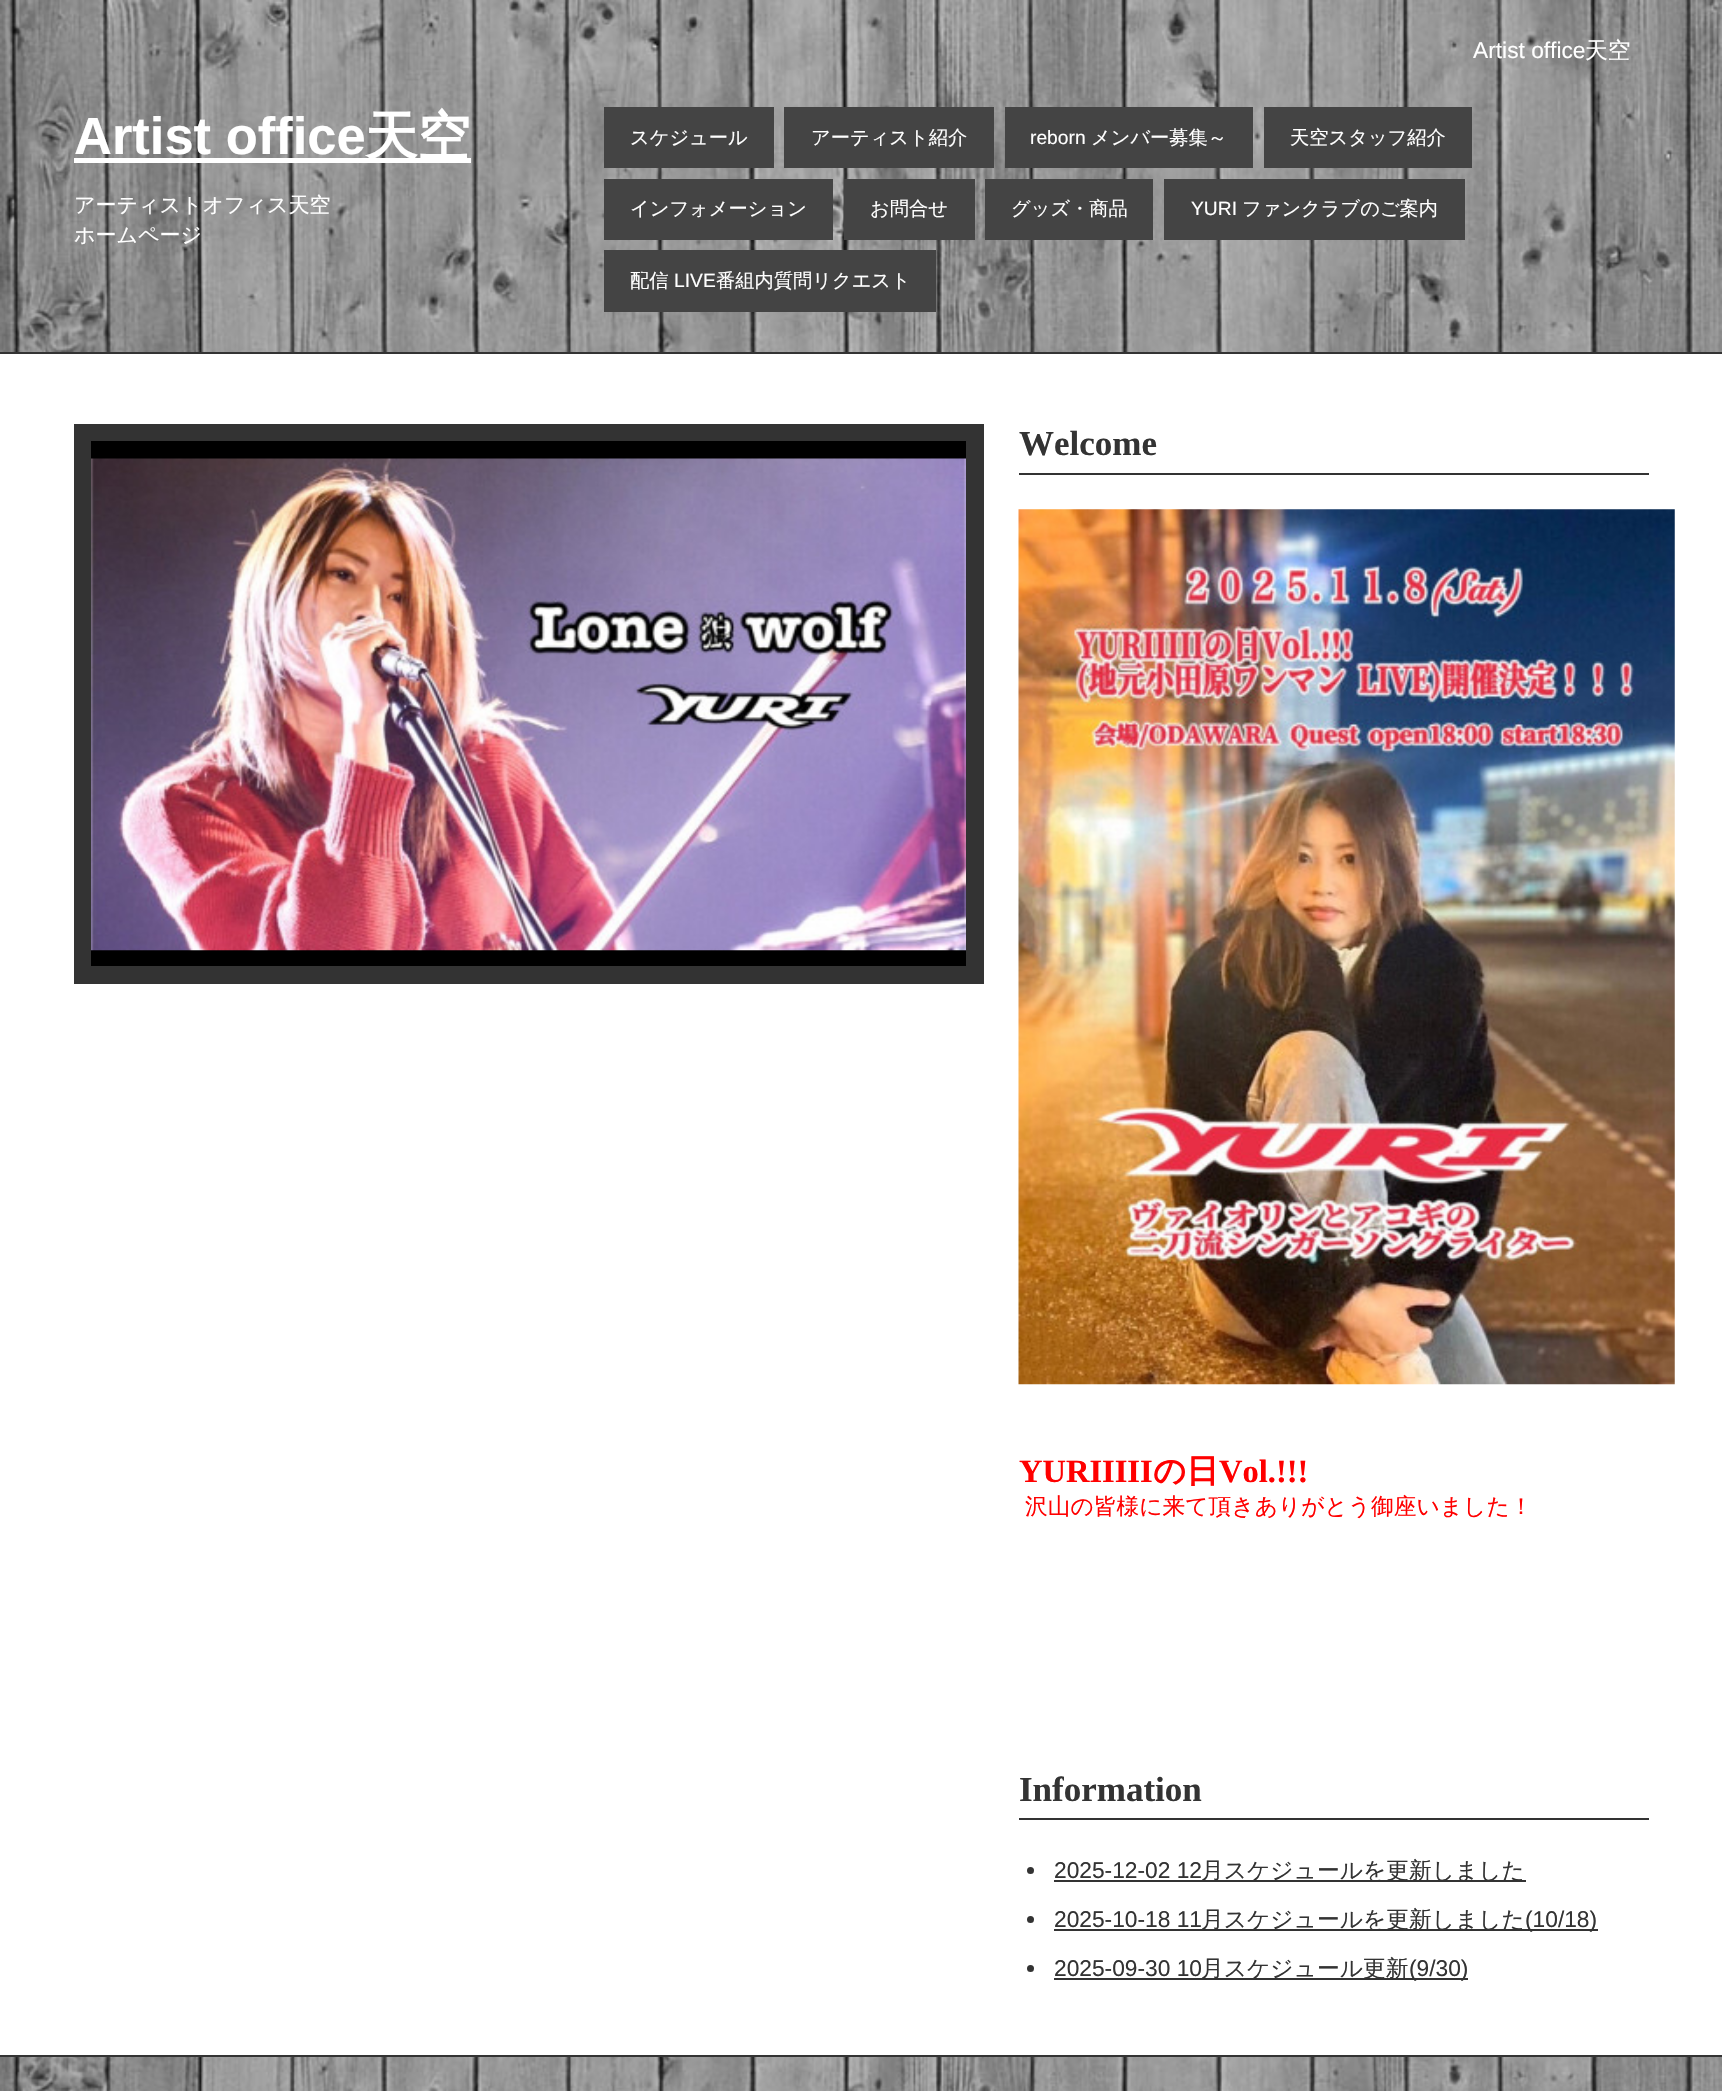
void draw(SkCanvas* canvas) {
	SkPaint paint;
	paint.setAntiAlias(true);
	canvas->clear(0xffffffff);
	canvas->drawImageRect(SkImages::DeferredFromEncodedData(SkData::MakeFromFileName("img1.png")), SkRect::MakeXYWH(0, 0, 1722, 2091), SkSamplingOptions());
	SkFont f1(fontMgr->matchFamilyStyle("Liberation Sans", SkFontStyle::Normal()), 22.75);
	f1.setSubpixel(true);
	paint.setColor(0xffffffff);
	canvas->drawString("Artist office", 1473, 58, f1, paint);
	SkFont f2(fontMgr->matchFamilyStyle("WenQuanYi Zen Hei", SkFontStyle(500, SkFontStyle::kNormal_Width, SkFontStyle::kUpright_Slant)), 22.75);
	f2.setSubpixel(true);
	canvas->drawString("天空", 1585, 58, f2, paint);
	SkFont f3(fontMgr->matchFamilyStyle("Liberation Sans", SkFontStyle::Bold()), 52.5);
	f3.setSubpixel(true);
	canvas->drawString("Artist office", 74, 154, f3, paint);
	canvas->drawRect(SkRect::MakeXYWH(74, 158, 397, 5), paint);
	SkFont f4(fontMgr->matchFamilyStyle("WenQuanYi Zen Hei", SkFontStyle::Bold()), 52.5);
	f4.setSubpixel(true);
	canvas->drawString("天空", 365, 154, f4, paint);
	SkFont f5(fontMgr->matchFamilyStyle("WenQuanYi Zen Hei", SkFontStyle(500, SkFontStyle::kNormal_Width, SkFontStyle::kUpright_Slant)), 21);
	f5.setSubpixel(true);
	canvas->drawString("アーティストオフィス天空", 74, 212, f5, paint);
	canvas->drawString("ホームページ", 74, 242, f5, paint);
	paint.setColor(0xff444444);
	canvas->drawRect(SkRect::MakeXYWH(604, 107, 170, 61), paint);
	SkFont f6(fontMgr->matchFamilyStyle("WenQuanYi Zen Hei", SkFontStyle(500, SkFontStyle::kNormal_Width, SkFontStyle::kUpright_Slant)), 19.25);
	f6.setSubpixel(true);
	paint.setColor(0xffffffff);
	canvas->drawString("スケジュール", 630, 144, f6, paint);
	paint.setColor(0xff444444);
	canvas->drawRect(SkRect::MakeXYWH(784, 107, 210, 61), paint);
	paint.setColor(0xffffffff);
	canvas->drawString("アーティスト紹介", 811, 144, f6, paint);
	paint.setColor(0xff444444);
	canvas->drawRect(SkRect::MakeXYWH(1005, 107, 248, 61), paint);
	SkFont f7(fontMgr->matchFamilyStyle("Liberation Sans", SkFontStyle::Normal()), 19.25);
	f7.setSubpixel(true);
	paint.setColor(0xffffffff);
	canvas->drawString("reborn", 1030, 144, f7, paint);
	canvas->drawString("メンバー募集～", 1091, 144, f6, paint);
	paint.setColor(0xff444444);
	canvas->drawRect(SkRect::MakeXYWH(1264, 107, 208, 61), paint);
	paint.setColor(0xffffffff);
	canvas->drawString("天空スタッフ紹介", 1290, 144, f6, paint);
	paint.setColor(0xff444444);
	canvas->drawRect(SkRect::MakeXYWH(604, 179, 229, 61), paint);
	paint.setColor(0xffffffff);
	canvas->drawString("インフォメーション", 630, 215, f6, paint);
	paint.setColor(0xff444444);
	canvas->drawRect(SkRect::MakeXYWH(844, 179, 131, 61), paint);
	paint.setColor(0xffffffff);
	canvas->drawString("お問合せ", 870, 215, f6, paint);
	paint.setColor(0xff444444);
	canvas->drawRect(SkRect::MakeXYWH(985, 179, 168, 61), paint);
	paint.setColor(0xffffffff);
	canvas->drawString("グッズ・商品", 1011, 215, f6, paint);
	paint.setColor(0xff444444);
	canvas->drawRect(SkRect::MakeXYWH(1164, 179, 301, 61), paint);
	paint.setColor(0xffffffff);
	canvas->drawString("YURI", 1191, 215, f7, paint);
	canvas->drawString("ファンクラブのご案内", 1242, 215, f6, paint);
	paint.setColor(0xff444444);
	canvas->drawRect(SkRect::MakeXYWH(604, 250, 332, 62), paint);
	paint.setColor(0xffffffff);
	canvas->drawString("配信", 630, 287, f6, paint);
	canvas->drawString("LIVE", 674, 287, f7, paint);
	canvas->drawString("番組内質問リクエスト", 716, 287, f6, paint);
	canvas->drawRect(SkRect::MakeXYWH(0, 354, 1722, 1701), paint);
	paint.setColor(0xff333333);
	canvas->drawRect(SkRect::MakeXYWH(0, 352, 1722, 2), paint);
	canvas->drawRect(SkRect::MakeXYWH(0, 2055, 1722, 2), paint);
	paint.setStroke(true);
	paint.setStrokeWidth(18);
	canvas->drawRect(SkRect::MakeXYWH(83, 433, 892, 542), paint);
	paint.setStroke(false);
	paint.setColor(0xff000000);
	canvas->drawRect(SkRect::MakeXYWH(91, 441, 875, 525), paint);
	canvas->drawImageRect(SkImages::DeferredFromEncodedData(SkData::MakeFromFileName("img2.png")), SkRect::MakeXYWH(91, 458, 875, 493), SkSamplingOptions());
	paint.setColor(0xff333333);
	canvas->drawRect(SkRect::MakeXYWH(1019, 473, 630, 2), paint);
	SkFont f8(fontMgr->matchFamilyStyle("Liberation Serif", SkFontStyle::Bold()), 35);
	f8.setSubpixel(true);
	canvas->drawString("Welcome", 1019, 455, f8, paint);
	canvas->drawImageRect(SkImages::DeferredFromEncodedData(SkData::MakeFromFileName("img3.png")), SkRect::MakeXYWH(1018, 509, 657, 876), SkSamplingOptions());
	SkFont f9(fontMgr->matchFamilyStyle("Liberation Serif", SkFontStyle::Bold()), 32.5);
	f9.setSubpixel(true);
	paint.setColor(0xffff0000);
	canvas->drawString("YURIIIII", 1019, 1482, f9, paint);
	SkFont f10(fontMgr->matchFamilyStyle("WenQuanYi Zen Hei", SkFontStyle::Bold()), 32.5);
	f10.setSubpixel(true);
	canvas->drawString("の日", 1153, 1482, f10, paint);
	canvas->drawString("Vol.!!!", 1219, 1482, f9, paint);
	canvas->drawString("沢山の皆様に来て頂きありがとう御座いました！", 1025, 1514, f2, paint);
	paint.setColor(0xff333333);
	canvas->drawRect(SkRect::MakeXYWH(1019, 1818, 630, 2), paint);
	canvas->drawString("Information", 1019, 1801, f8, paint);
	canvas->drawCircle(1030.5, 1870.5, 3.5, paint);
	canvas->drawString("2025-12-02 12", 1054, 1878, f1, paint);
	canvas->drawRect(SkRect::MakeXYWH(1054, 1880, 472, 2), paint);
	canvas->drawString("月スケジュールを更新しました", 1201, 1878, f2, paint);
	canvas->drawCircle(1030.5, 1919.5, 3.5, paint);
	canvas->drawString("2025-10-18 11", 1054, 1927, f1, paint);
	canvas->drawRect(SkRect::MakeXYWH(1054, 1929, 544, 2), paint);
	canvas->drawString("月スケジュールを更新しました", 1201, 1927, f2, paint);
	canvas->drawString("(10/18)", 1525, 1927, f1, paint);
	canvas->drawCircle(1030.5, 1968.5, 3.5, paint);
	canvas->drawString("2025-09-30 10", 1054, 1976, f1, paint);
	canvas->drawRect(SkRect::MakeXYWH(1054, 1978, 414, 2), paint);
	canvas->drawString("月スケジュール更新", 1201, 1976, f2, paint);
	canvas->drawString("(9/30)", 1409, 1976, f1, paint);
}
